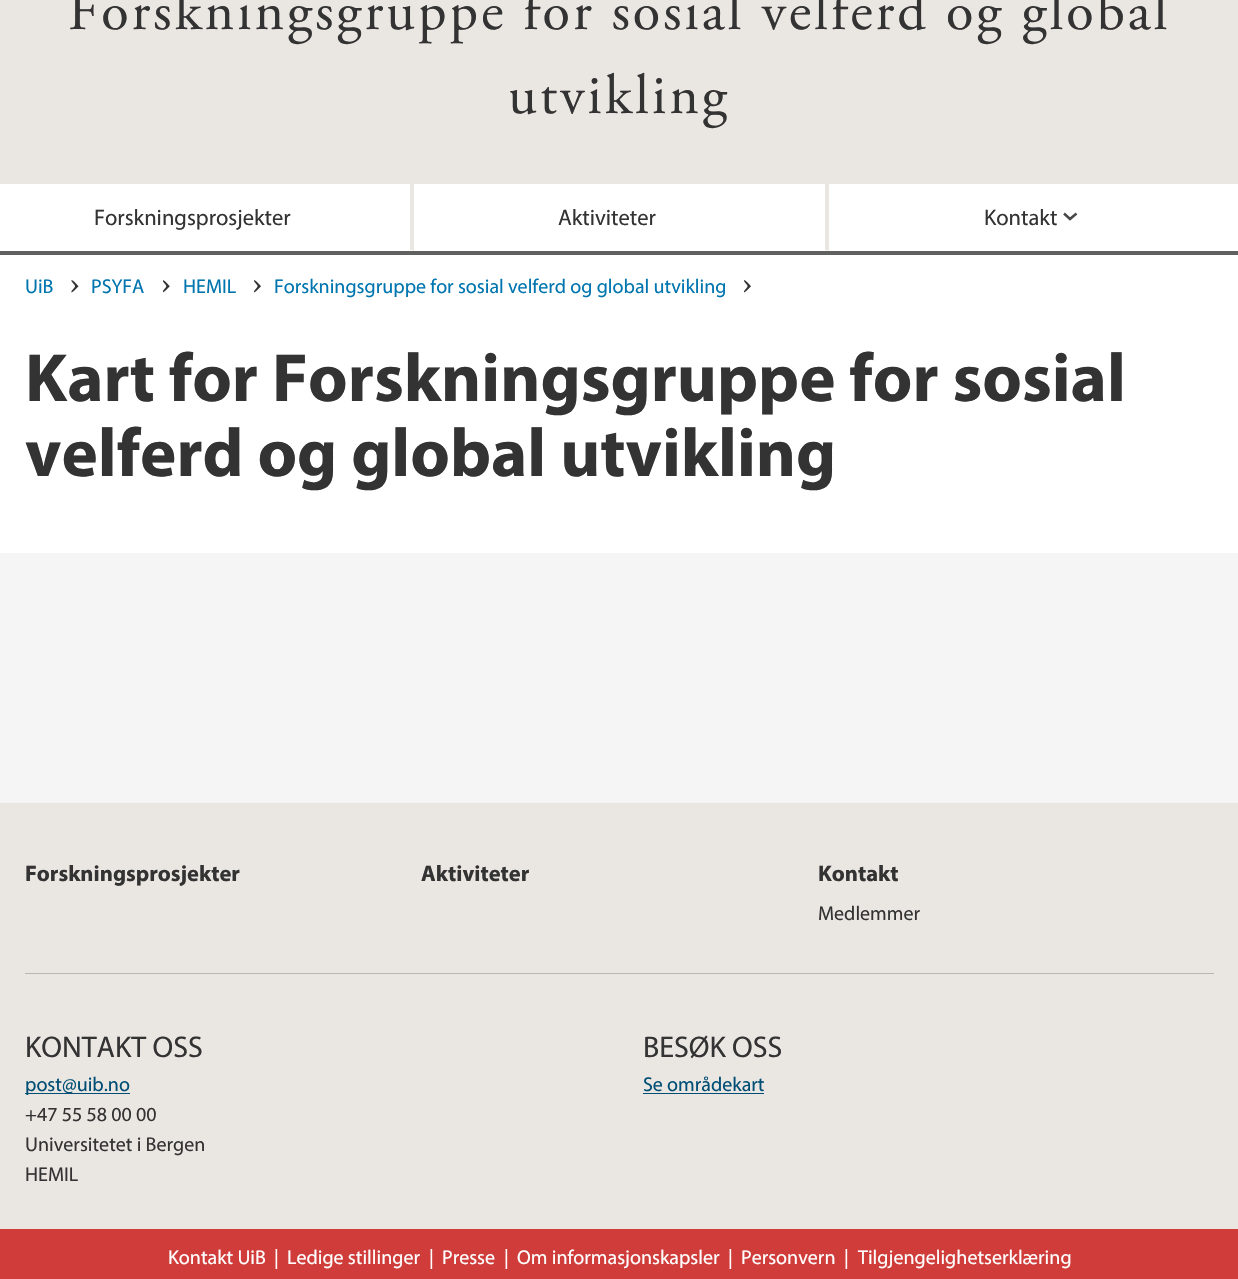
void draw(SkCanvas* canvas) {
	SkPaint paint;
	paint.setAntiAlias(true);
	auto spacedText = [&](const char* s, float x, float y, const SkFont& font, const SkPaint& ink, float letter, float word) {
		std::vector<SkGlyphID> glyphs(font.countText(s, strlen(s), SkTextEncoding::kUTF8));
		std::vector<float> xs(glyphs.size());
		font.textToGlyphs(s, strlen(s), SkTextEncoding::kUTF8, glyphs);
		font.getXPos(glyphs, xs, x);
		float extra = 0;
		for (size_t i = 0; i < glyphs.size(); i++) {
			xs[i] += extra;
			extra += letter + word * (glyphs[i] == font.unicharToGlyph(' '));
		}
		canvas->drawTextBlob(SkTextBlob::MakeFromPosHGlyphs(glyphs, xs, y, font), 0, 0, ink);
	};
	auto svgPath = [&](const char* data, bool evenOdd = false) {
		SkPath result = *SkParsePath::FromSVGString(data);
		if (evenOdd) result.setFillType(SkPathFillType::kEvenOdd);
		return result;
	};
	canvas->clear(0xffffffff);
	paint.setColor(0xffeae6e2);
	canvas->drawRect(SkRect::MakeXYWH(0, 0, 1238, 184), paint);
	SkFont f1(fontMgr->matchFamilyStyle("Adobe Garamond", SkFontStyle::Normal()), 56.25);
	f1.setSubpixel(true);
	paint.setColor(0xff333333);
	spacedText("Forskningsgruppe for sosial velferd og global", 68, 29, f1, paint, 3, 0);
	spacedText("utvikling", 508, 113, f1, paint, 3, 0);
	paint.setColor(0xff606060);
	canvas->drawRect(SkRect::MakeXYWH(0, 251, 1238, 4), paint);
	paint.setColor(0xffeae6e2);
	canvas->drawPath(svgPath("M414 184V251L410 250V184Z"), paint);
	paint.setColor(0xffffffff);
	canvas->drawPath(svgPath("M414 251H0V250H410Z"), paint);
	SkFont f2(fontMgr->matchFamilyStyle("Myriad", SkFontStyle::Normal()), 22.5);
	f2.setSubpixel(true);
	paint.setColor(0xff333333);
	canvas->drawString("Forskningsprosjekter", 94, 225, f2, paint);
	paint.setColor(0xffeae6e2);
	canvas->drawPath(svgPath("M829 184V251L825 250V184Z"), paint);
	paint.setColor(0xffffffff);
	canvas->drawPath(svgPath("M829 251H414V250H825Z"), paint);
	paint.setColor(0xff333333);
	canvas->drawString("Aktiviteter", 558, 225, f2, paint);
	canvas->drawString("Kontakt", 984, 225, f2, paint);
	paint.setStroke(true);
	paint.setStrokeWidth(2.5);
	paint.setColor(0xff474747);
	canvas->drawPath(svgPath("M1076.5 213.5L1070 219L1064 213.5"), paint);
	SkFont f3(fontMgr->matchFamilyStyle("Myriad", SkFontStyle::Normal()), 20);
	f3.setSubpixel(true);
	paint.setStroke(false);
	paint.setColor(0xff0075af);
	canvas->drawString("UiB", 25, 293, f3, paint);
	canvas->drawImageRect(SkImages::DeferredFromEncodedData(SkData::MakeFromFileName("img1.png")), SkRect::MakeXYWH(71, 280, 8, 13), SkSamplingOptions());
	canvas->drawString("PSYFA", 91, 293, f3, paint);
	canvas->drawImageRect(SkImages::DeferredFromEncodedData(SkData::MakeFromFileName("img2.png")), SkRect::MakeXYWH(163, 280, 7, 13), SkSamplingOptions());
	canvas->drawString("HEMIL", 183, 293, f3, paint);
	canvas->drawImageRect(SkImages::DeferredFromEncodedData(SkData::MakeFromFileName("img3.png")), SkRect::MakeXYWH(254, 280, 7, 13), SkSamplingOptions());
	canvas->drawString("Forskningsgruppe for sosial velferd og global utvikling", 274, 293, f3, paint);
	canvas->drawImageRect(SkImages::DeferredFromEncodedData(SkData::MakeFromFileName("img3.png")), SkRect::MakeXYWH(744, 280, 7, 13), SkSamplingOptions());
	SkFont f4(fontMgr->matchFamilyStyle("Myriad", SkFontStyle::Bold()), 68.75);
	f4.setSubpixel(true);
	paint.setColor(0xff333333);
	canvas->drawString("Kart for Forskningsgruppe for sosial", 25, 401, f4, paint);
	canvas->drawString("velferd og global utvikling", 25, 476, f4, paint);
	paint.setColor(0xfff5f5f5);
	canvas->drawRect(SkRect::MakeXYWH(0, 553, 1238, 250), paint);
	paint.setColor(0xffeae6e2);
	canvas->drawRect(SkRect::MakeXYWH(0, 803, 1238, 426), paint);
	paint.setColor(0xffb7b7b7);
	canvas->drawRect(SkRect::MakeXYWH(25, 973, 1189, 1), paint);
	SkFont f5(fontMgr->matchFamilyStyle("Myriad", SkFontStyle::Bold()), 22.5);
	f5.setSubpixel(true);
	paint.setColor(0xff333333);
	canvas->drawString("Forskningsprosjekter", 25, 881, f5, paint);
	canvas->drawString("Aktiviteter", 421, 881, f5, paint);
	canvas->drawString("Kontakt", 818, 881, f5, paint);
	canvas->drawString("Medlemmer", 818, 920, f3, paint);
	SkFont f6(fontMgr->matchFamilyStyle("Myriad", SkFontStyle::Normal()), 30);
	f6.setSubpixel(true);
	canvas->drawString("KONTAKT OSS", 25, 1057, f6, paint);
	paint.setColor(0xff004e75);
	canvas->drawRect(SkRect::MakeXYWH(25, 1093, 105, 1), paint);
	canvas->drawString("post@uib.no", 25, 1091, f3, paint);
	paint.setColor(0xff333333);
	canvas->drawString("+47 55 58 00 00", 25, 1121, f3, paint);
	canvas->drawString("Universitetet i Bergen", 25, 1151, f3, paint);
	canvas->drawString("HEMIL", 25, 1181, f3, paint);
	canvas->drawString("BESØK OSS", 643, 1057, f6, paint);
	paint.setColor(0xff004e75);
	canvas->drawString("Se områdekart", 643, 1091, f3, paint);
	canvas->drawRect(SkRect::MakeXYWH(643, 1093, 121, 1), paint);
	paint.setColor(0xffcf3c3a);
	canvas->drawRect(SkRect::MakeXYWH(0, 1229, 1238, 50), paint);
	paint.setColor(0xffffffff);
	canvas->drawString("Kontakt UiB", 168, 1264, f3, paint);
	canvas->drawString("|", 274, 1264, f3, paint);
	canvas->drawString("Ledige stillinger", 287, 1264, f3, paint);
	canvas->drawString("|", 429, 1264, f3, paint);
	canvas->drawString("Presse", 442, 1264, f3, paint);
	canvas->drawString("|", 504, 1264, f3, paint);
	canvas->drawString("Om informasjonskapsler", 517, 1264, f3, paint);
	canvas->drawString("|", 728, 1264, f3, paint);
	canvas->drawString("Personvern", 741, 1264, f3, paint);
	canvas->drawString("|", 844, 1264, f3, paint);
	canvas->drawString("Tilgjengelighetserklæring", 858, 1264, f3, paint);
}
